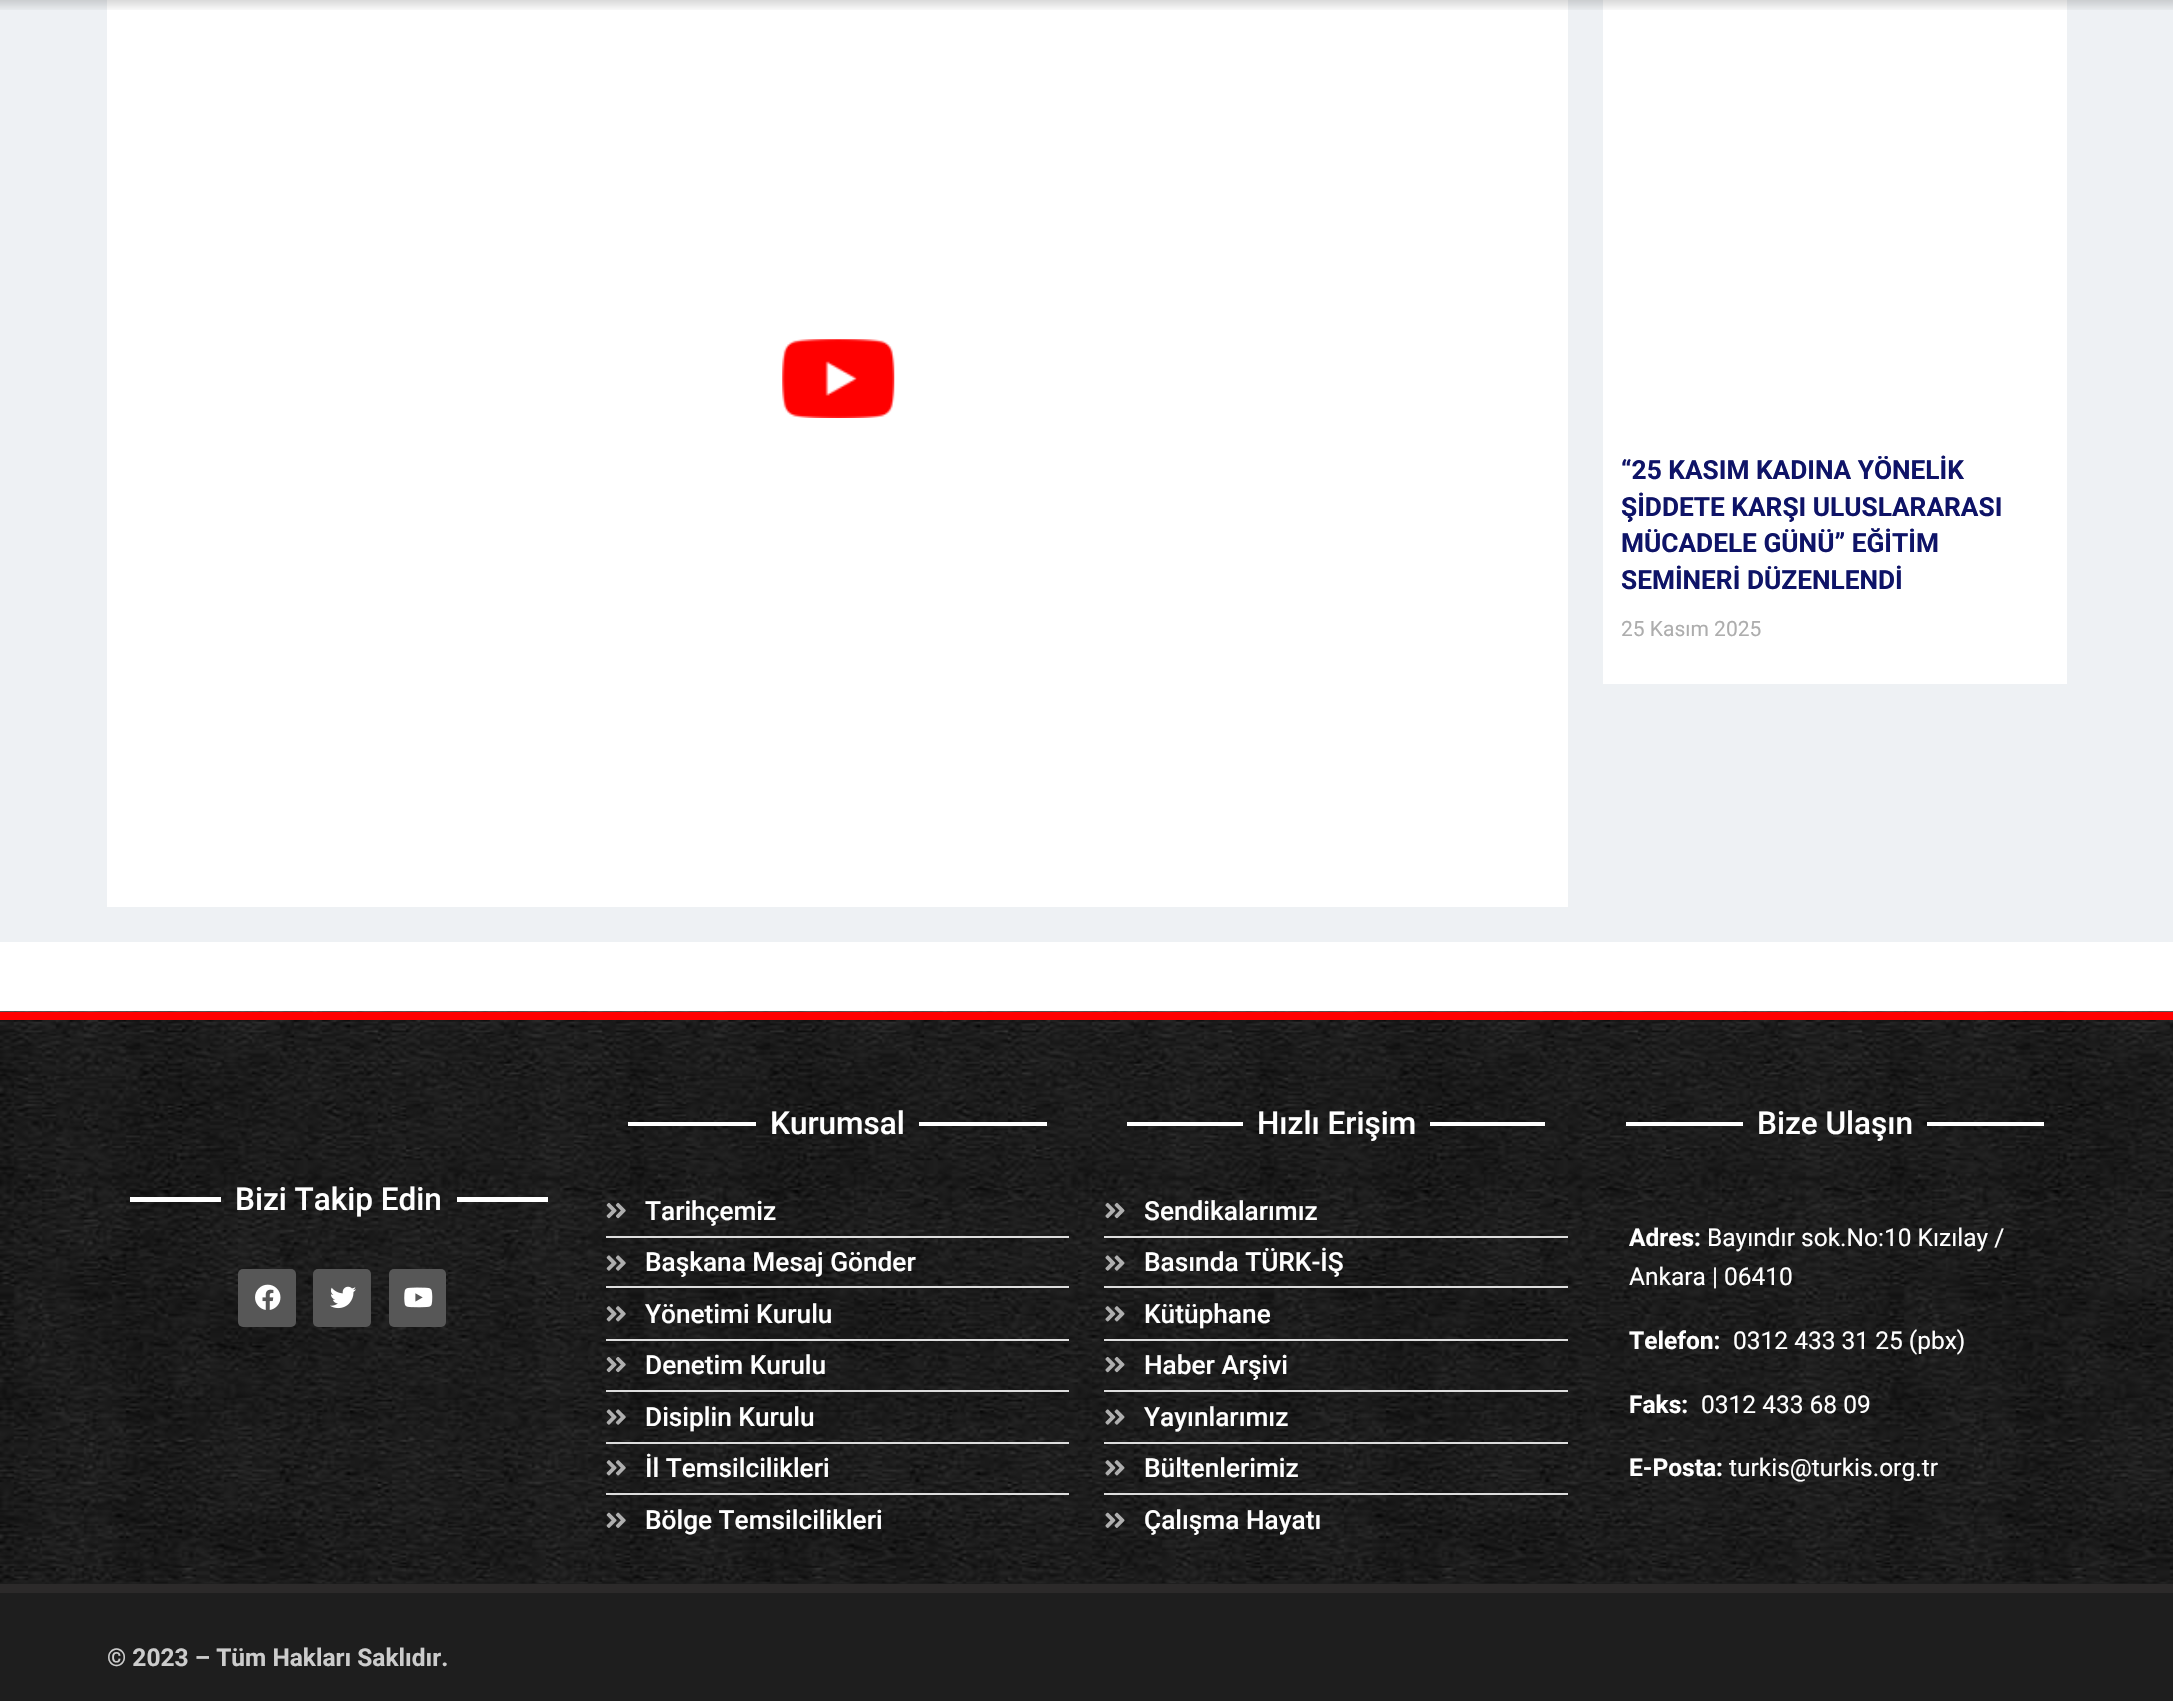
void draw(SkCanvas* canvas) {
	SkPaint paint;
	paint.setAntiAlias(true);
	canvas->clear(0xffffffff);
	paint.setColor(0xffeef1f4);
	canvas->drawRect(SkRect::MakeXYWH(0, 0, 2173, 942), paint);
	paint.setColor(0xffffffff);
	canvas->drawRect(SkRect::MakeXYWH(107, 0, 1461, 907), paint);
	canvas->drawRect(SkRect::MakeXYWH(1603, 0, 464, 684), paint);
	{
		const SkColor colors[] = {0x26000000, 0x00000000};
		const float stops[] = {0, 1};
		const SkPoint ends[] = {{1087, 0}, {1087, 12}};
		paint.setShader(SkGradientShader::MakeLinear(ends, colors, stops, 2, SkTileMode::kClamp));
		paint.setAlpha(255);
	}
	canvas->drawRect(SkRect::MakeXYWH(0, 0, 2173, 10), paint);
	canvas->drawImageRect(SkImages::DeferredFromEncodedData(SkData::MakeFromFileName("img1.png")), SkRect::MakeXYWH(782, 339, 113, 79), SkSamplingOptions());
	SkFont f1(fontMgr->matchFamilyStyle("Roboto", SkFontStyle::Bold()), 26.25);
	f1.setSubpixel(true);
	paint.setShader(nullptr);
	paint.setColor(0xff0e1367);
	canvas->drawString("“25 KASIM KADINA YÖNELİK", 1621, 479, f1, paint);
	canvas->drawString("ŞİDDETE KARŞI ULUSLARARASI", 1621, 516, f1, paint);
	canvas->drawString("MÜCADELE GÜNÜ” EĞİTİM", 1621, 552, f1, paint);
	canvas->drawString("SEMİNERİ DÜZENLENDİ", 1621, 589, f1, paint);
	SkFont f2(fontMgr->matchFamilyStyle("Roboto", SkFontStyle::Normal()), 21);
	f2.setSubpixel(true);
	paint.setColor(0xffadadad);
	canvas->drawString("25 Kasım 2025", 1621, 636, f2, paint);
	paint.setColor(0xff1e1e1e);
	canvas->drawRect(SkRect::MakeXYWH(0, 1583, 2173, 1), paint);
	canvas->drawImageRect(SkImages::DeferredFromEncodedData(SkData::MakeFromFileName("img2.png")), SkRect::MakeXYWH(0, 1011, 2173, 573), SkSamplingOptions());
	paint.setColor(0xffff0101);
	canvas->drawRect(SkRect::MakeXYWH(0, 1012, 2173, 8), paint);
	paint.setColor(0xffffffff);
	canvas->drawRect(SkRect::MakeXYWH(130, 1197, 91, 5), paint);
	SkFont f3(fontMgr->matchFamilyStyle("Roboto", SkFontStyle(500, SkFontStyle::kNormal_Width, SkFontStyle::kUpright_Slant)), 31.5);
	f3.setSubpixel(true);
	canvas->drawString("Bizi Takip Edin", 235, 1210, f3, paint);
	canvas->drawRect(SkRect::MakeXYWH(457, 1197, 91, 5), paint);
	paint.setColor(0xff575757);
	canvas->drawRoundRect(SkRect::MakeXYWH(238, 1269, 58, 58), 5, 5, paint);
	canvas->drawImageRect(SkImages::DeferredFromEncodedData(SkData::MakeFromFileName("img3.png")), SkRect::MakeXYWH(255, 1284, 26, 26), SkSamplingOptions());
	canvas->drawRoundRect(SkRect::MakeXYWH(313, 1269, 58, 58), 5, 5, paint);
	canvas->drawImageRect(SkImages::DeferredFromEncodedData(SkData::MakeFromFileName("img4.png")), SkRect::MakeXYWH(330, 1286, 26, 23), SkSamplingOptions());
	canvas->drawRoundRect(SkRect::MakeXYWH(389, 1269, 57, 58), 5, 5, paint);
	canvas->drawImageRect(SkImages::DeferredFromEncodedData(SkData::MakeFromFileName("img5.png")), SkRect::MakeXYWH(404, 1287, 29, 21), SkSamplingOptions());
	paint.setColor(0xffffffff);
	canvas->drawRect(SkRect::MakeXYWH(628, 1122, 128, 4), paint);
	canvas->drawString("Kurumsal", 770, 1134, f3, paint);
	canvas->drawRect(SkRect::MakeXYWH(919, 1122, 128, 4), paint);
	canvas->drawImageRect(SkImages::DeferredFromEncodedData(SkData::MakeFromFileName("img6.png")), SkRect::MakeXYWH(606, 1202, 20, 17), SkSamplingOptions());
	SkFont f4(fontMgr->matchFamilyStyle("Roboto", SkFontStyle(500, SkFontStyle::kNormal_Width, SkFontStyle::kUpright_Slant)), 26.25);
	f4.setSubpixel(true);
	canvas->drawString("Tarihçemiz", 645, 1220, f4, paint);
	paint.setColor(0xffdddddd);
	canvas->drawRect(SkRect::MakeXYWH(606, 1236, 463, 2), paint);
	canvas->drawImageRect(SkImages::DeferredFromEncodedData(SkData::MakeFromFileName("img7.png")), SkRect::MakeXYWH(606, 1255, 20, 16), SkSamplingOptions());
	paint.setColor(0xffffffff);
	canvas->drawString("Başkana Mesaj Gönder", 645, 1271, f4, paint);
	paint.setColor(0xffdddddd);
	canvas->drawRect(SkRect::MakeXYWH(606, 1286, 463, 2), paint);
	canvas->drawImageRect(SkImages::DeferredFromEncodedData(SkData::MakeFromFileName("img8.png")), SkRect::MakeXYWH(606, 1306, 20, 16), SkSamplingOptions());
	paint.setColor(0xffffffff);
	canvas->drawString("Yönetimi Kurulu", 645, 1323, f4, paint);
	paint.setColor(0xffdddddd);
	canvas->drawRect(SkRect::MakeXYWH(606, 1339, 463, 2), paint);
	canvas->drawImageRect(SkImages::DeferredFromEncodedData(SkData::MakeFromFileName("img9.png")), SkRect::MakeXYWH(606, 1357, 20, 16), SkSamplingOptions());
	paint.setColor(0xffffffff);
	canvas->drawString("Denetim Kurulu", 645, 1374, f4, paint);
	paint.setColor(0xffdddddd);
	canvas->drawRect(SkRect::MakeXYWH(606, 1390, 463, 2), paint);
	canvas->drawImageRect(SkImages::DeferredFromEncodedData(SkData::MakeFromFileName("img10.png")), SkRect::MakeXYWH(606, 1409, 20, 16), SkSamplingOptions());
	paint.setColor(0xffffffff);
	canvas->drawString("Disiplin Kurulu", 645, 1426, f4, paint);
	paint.setColor(0xffdddddd);
	canvas->drawRect(SkRect::MakeXYWH(606, 1442, 463, 2), paint);
	canvas->drawImageRect(SkImages::DeferredFromEncodedData(SkData::MakeFromFileName("img11.png")), SkRect::MakeXYWH(606, 1460, 20, 16), SkSamplingOptions());
	paint.setColor(0xffffffff);
	canvas->drawString("İl Temsilcilikleri", 645, 1477, f4, paint);
	paint.setColor(0xffdddddd);
	canvas->drawRect(SkRect::MakeXYWH(606, 1493, 463, 2), paint);
	canvas->drawImageRect(SkImages::DeferredFromEncodedData(SkData::MakeFromFileName("img12.png")), SkRect::MakeXYWH(606, 1512, 20, 16), SkSamplingOptions());
	paint.setColor(0xffffffff);
	canvas->drawString("Bölge Temsilcilikleri", 645, 1529, f4, paint);
	canvas->drawRect(SkRect::MakeXYWH(1127, 1122, 116, 4), paint);
	canvas->drawString("Hızlı Erişim", 1257, 1134, f3, paint);
	canvas->drawRect(SkRect::MakeXYWH(1430, 1122, 115, 4), paint);
	canvas->drawImageRect(SkImages::DeferredFromEncodedData(SkData::MakeFromFileName("img13.png")), SkRect::MakeXYWH(1105, 1202, 20, 17), SkSamplingOptions());
	canvas->drawString("Sendikalarımız", 1144, 1220, f4, paint);
	paint.setColor(0xffdddddd);
	canvas->drawRect(SkRect::MakeXYWH(1104, 1236, 464, 2), paint);
	canvas->drawImageRect(SkImages::DeferredFromEncodedData(SkData::MakeFromFileName("img14.png")), SkRect::MakeXYWH(1105, 1255, 20, 16), SkSamplingOptions());
	paint.setColor(0xffffffff);
	canvas->drawString("Basında TÜRK-İŞ", 1144, 1271, f4, paint);
	paint.setColor(0xffdddddd);
	canvas->drawRect(SkRect::MakeXYWH(1104, 1286, 464, 2), paint);
	canvas->drawImageRect(SkImages::DeferredFromEncodedData(SkData::MakeFromFileName("img15.png")), SkRect::MakeXYWH(1105, 1306, 20, 16), SkSamplingOptions());
	paint.setColor(0xffffffff);
	canvas->drawString("Kütüphane", 1144, 1323, f4, paint);
	paint.setColor(0xffdddddd);
	canvas->drawRect(SkRect::MakeXYWH(1104, 1339, 464, 2), paint);
	canvas->drawImageRect(SkImages::DeferredFromEncodedData(SkData::MakeFromFileName("img16.png")), SkRect::MakeXYWH(1105, 1356, 20, 17), SkSamplingOptions());
	paint.setColor(0xffffffff);
	canvas->drawString("Haber Arşivi", 1144, 1374, f4, paint);
	paint.setColor(0xffdddddd);
	canvas->drawRect(SkRect::MakeXYWH(1104, 1390, 464, 2), paint);
	canvas->drawImageRect(SkImages::DeferredFromEncodedData(SkData::MakeFromFileName("img17.png")), SkRect::MakeXYWH(1105, 1409, 20, 16), SkSamplingOptions());
	paint.setColor(0xffffffff);
	canvas->drawString("Yayınlarımız", 1144, 1426, f4, paint);
	paint.setColor(0xffdddddd);
	canvas->drawRect(SkRect::MakeXYWH(1104, 1442, 464, 2), paint);
	canvas->drawImageRect(SkImages::DeferredFromEncodedData(SkData::MakeFromFileName("img18.png")), SkRect::MakeXYWH(1105, 1460, 20, 16), SkSamplingOptions());
	paint.setColor(0xffffffff);
	canvas->drawString("Bültenlerimiz", 1144, 1477, f4, paint);
	paint.setColor(0xffdddddd);
	canvas->drawRect(SkRect::MakeXYWH(1104, 1493, 464, 2), paint);
	canvas->drawImageRect(SkImages::DeferredFromEncodedData(SkData::MakeFromFileName("img19.png")), SkRect::MakeXYWH(1105, 1512, 20, 16), SkSamplingOptions());
	paint.setColor(0xffffffff);
	canvas->drawString("Çalışma Hayatı", 1144, 1529, f4, paint);
	canvas->drawRect(SkRect::MakeXYWH(1626, 1122, 117, 4), paint);
	canvas->drawString("Bize Ulaşın", 1757, 1134, f3, paint);
	canvas->drawRect(SkRect::MakeXYWH(1927, 1122, 117, 4), paint);
	SkFont f5(fontMgr->matchFamilyStyle("Roboto", SkFontStyle::Bold()), 24.5);
	f5.setSubpixel(true);
	canvas->drawString("Adres:", 1629, 1246, f5, paint);
	SkFont f6(fontMgr->matchFamilyStyle("Roboto", SkFontStyle::Normal()), 24.5);
	f6.setSubpixel(true);
	canvas->drawString("Bayındır sok.No:10 Kızılay /", 1707, 1246, f6, paint);
	canvas->drawString("Ankara | 06410", 1629, 1285, f6, paint);
	canvas->drawString("Telefon:", 1629, 1349, f5, paint);
	canvas->drawString("0312 433 31 25 (pbx)", 1733, 1349, f6, paint);
	canvas->drawString("Faks:", 1629, 1413, f5, paint);
	canvas->drawString("0312 433 68 09", 1701, 1413, f6, paint);
	canvas->drawString("E-Posta:", 1629, 1476, f5, paint);
	canvas->drawString("turkis@turkis.org.tr", 1729, 1476, f6, paint);
	paint.setColor(0xff1e1e1e);
	canvas->drawRect(SkRect::MakeXYWH(0, 1593, 2173, 108), paint);
	paint.setColor(0xff2c2a2a);
	canvas->drawRect(SkRect::MakeXYWH(0, 1584, 2173, 9), paint);
	paint.setColor(0xffcccccc);
	canvas->drawString("© 2023 – Tüm Hakları Saklıdır.", 107, 1666, f5, paint);
}
